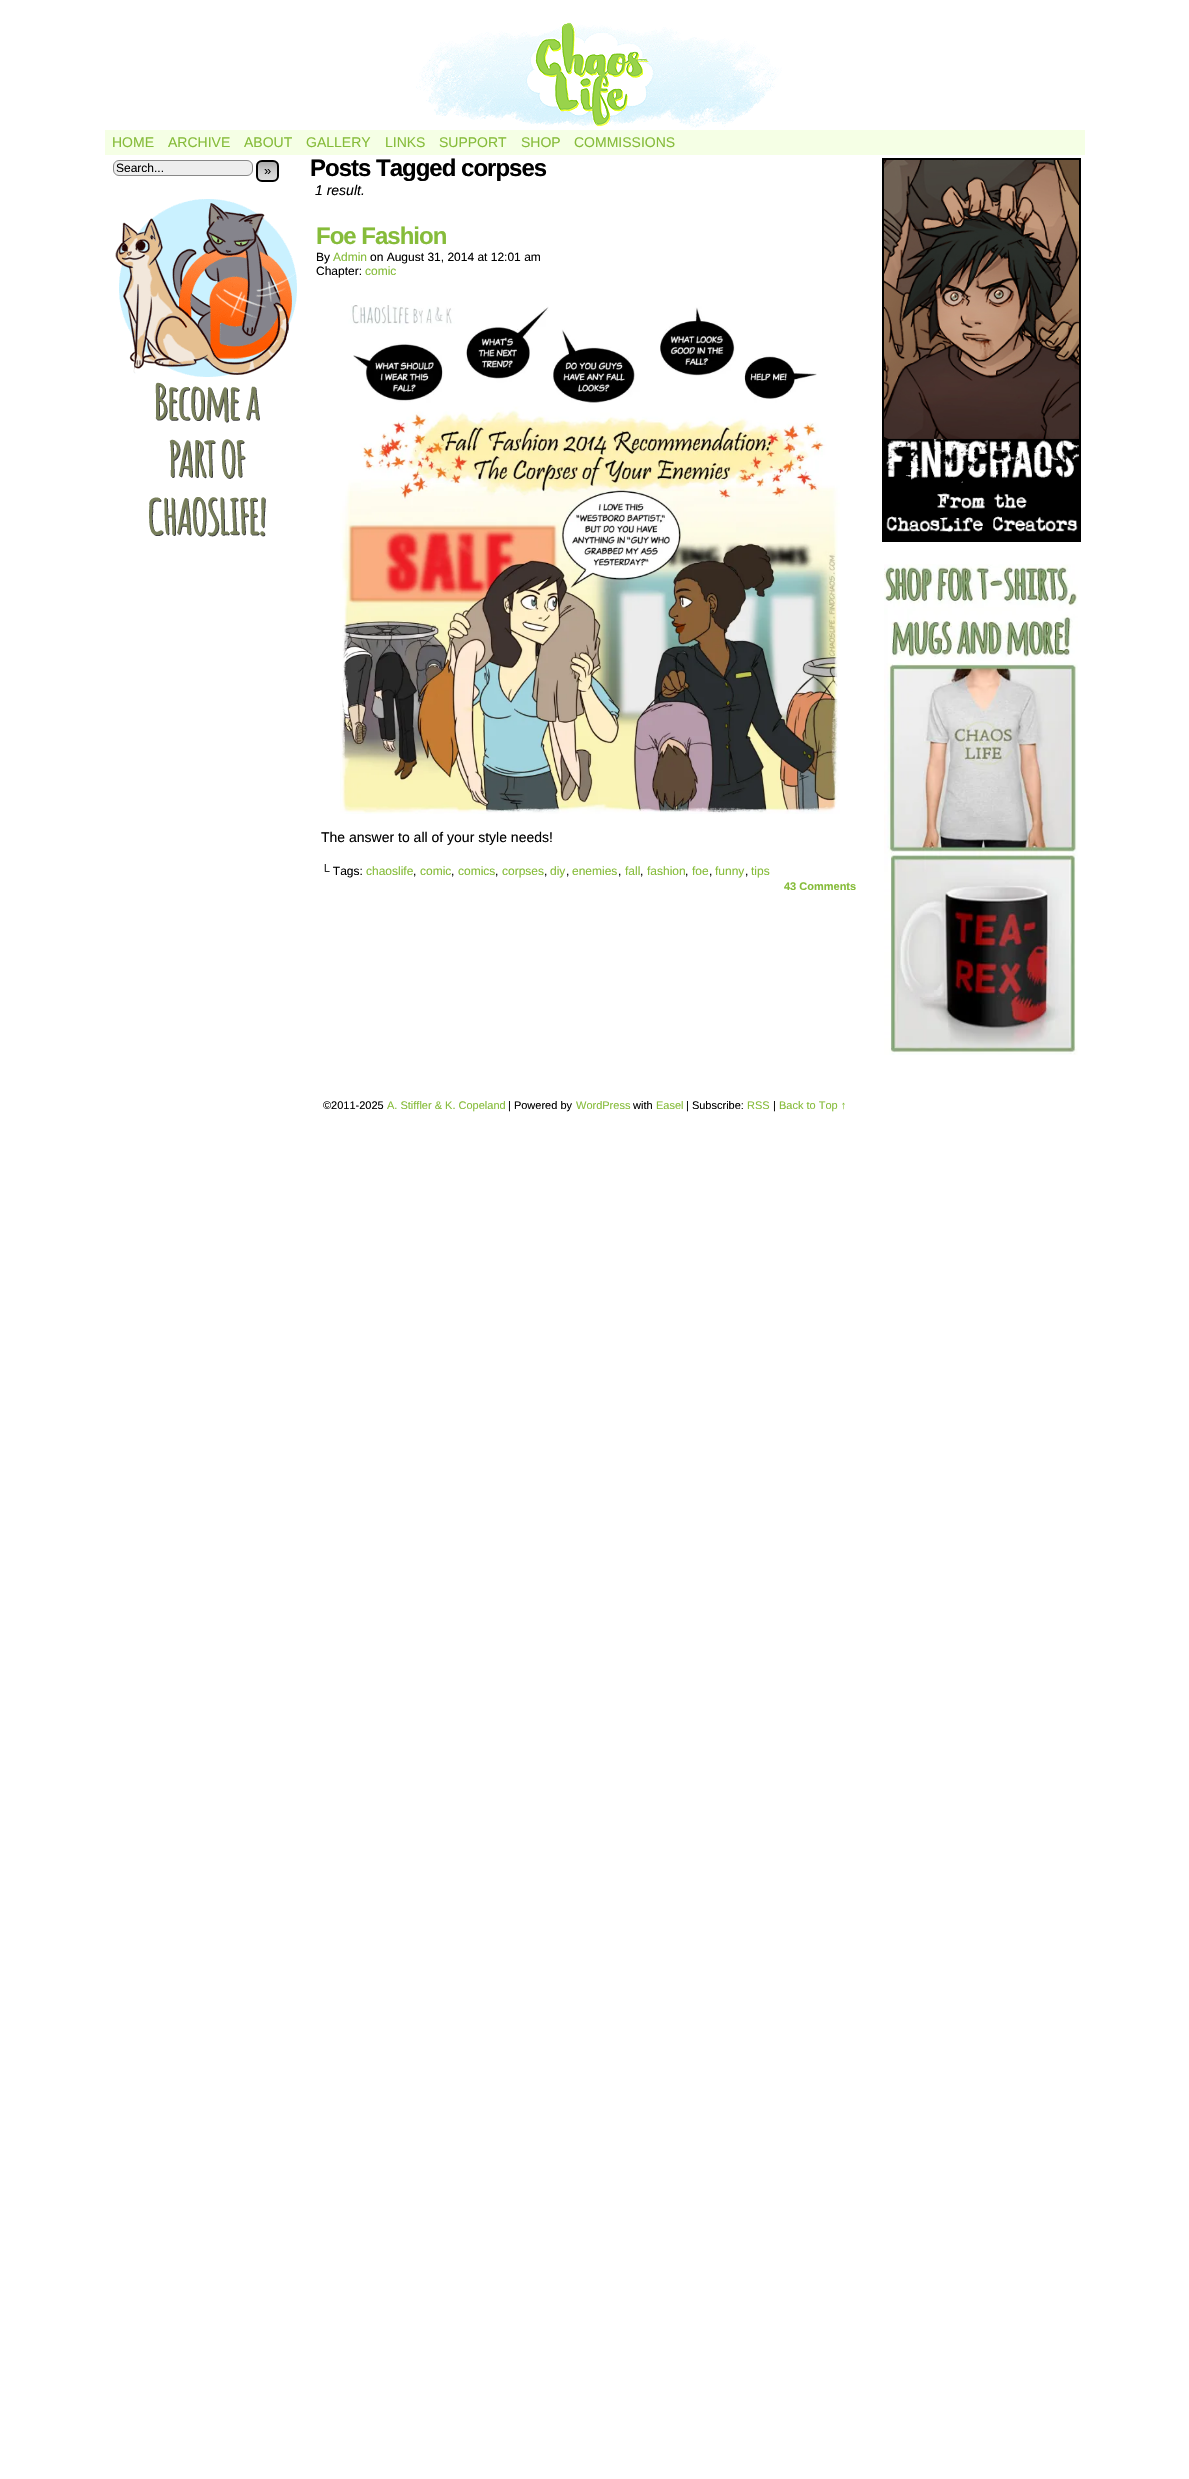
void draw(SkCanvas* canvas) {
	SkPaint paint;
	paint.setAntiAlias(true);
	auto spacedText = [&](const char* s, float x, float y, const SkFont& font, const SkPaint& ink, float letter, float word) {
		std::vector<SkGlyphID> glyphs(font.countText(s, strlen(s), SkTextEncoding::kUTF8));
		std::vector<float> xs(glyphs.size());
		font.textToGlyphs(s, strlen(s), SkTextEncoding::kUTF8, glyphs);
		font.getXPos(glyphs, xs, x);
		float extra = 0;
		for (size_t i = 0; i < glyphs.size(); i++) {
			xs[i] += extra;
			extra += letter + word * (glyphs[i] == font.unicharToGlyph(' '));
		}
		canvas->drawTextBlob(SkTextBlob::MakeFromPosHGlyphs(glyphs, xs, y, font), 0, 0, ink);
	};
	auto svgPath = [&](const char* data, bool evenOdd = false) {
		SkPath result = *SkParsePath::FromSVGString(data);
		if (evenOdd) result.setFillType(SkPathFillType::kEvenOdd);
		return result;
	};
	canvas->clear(0xffffffff);
	canvas->drawImageRect(SkImages::DeferredFromEncodedData(SkData::MakeFromFileName("img1.png")), SkRect::MakeXYWH(416, 22, 366, 106), SkSamplingOptions());
	paint.setColor(0xfff5ffe5);
	canvas->drawRect(SkRect::MakeXYWH(105, 130, 980, 25), paint);
	SkFont f1(fontMgr->matchFamilyStyle("Liberation Sans", SkFontStyle::Normal()), 14);
	f1.setSubpixel(true);
	paint.setColor(0xff86bc3a);
	canvas->drawString("HOME", 112, 147, f1, paint);
	canvas->drawString("ARCHIVE", 168, 147, f1, paint);
	canvas->drawString("ABOUT", 244, 147, f1, paint);
	canvas->drawString("GALLERY", 306, 147, f1, paint);
	canvas->drawString("LINKS", 385, 147, f1, paint);
	canvas->drawString("SUPPORT", 439, 147, f1, paint);
	canvas->drawString("SHOP", 521, 147, f1, paint);
	canvas->drawString("COMMISSIONS", 574, 147, f1, paint);
	paint.setColor(0xffeeeeee);
	canvas->drawRoundRect(SkRect::MakeXYWH(113.5, 160.5, 139, 15), 5.5, 5.5, paint);
	paint.setStroke(true);
	paint.setStrokeWidth(1);
	paint.setColor(0xff888888);
	canvas->drawRoundRect(SkRect::MakeXYWH(113.5, 160.5, 139, 15), 5.5, 5.5, paint);
	SkFont f2(fontMgr->matchFamilyStyle("Liberation Sans", SkFontStyle::Normal()), 12);
	f2.setSubpixel(true);
	paint.setStroke(false);
	paint.setColor(0xff000000);
	canvas->drawString("Search...", 116, 172, f2, paint);
	canvas->save();
	canvas->clipPath(svgPath("M262 160H273C276.5 160 279 162.5 279 166V176C279 179.5 276.5 182 273 182H262C258.5 182 256 179.5 256 176V166C256 162.5 258.5 160 262 160Z"), true);
	{
		const SkColor colors[] = {0xffaaaaaa, 0xffcccccc, 0xffdddddd};
		const float stops[] = {0, 0.5, 1};
		const SkPoint ends[] = {{268, 162}, {268, 180}};
		paint.setShader(SkGradientShader::MakeLinear(ends, colors, stops, 3, SkTileMode::kClamp));
		paint.setAlpha(255);
	}
	canvas->drawRect(SkRect::MakeXYWH(256, 162, 23, 18), paint);
	canvas->restore();
	paint.setStroke(true);
	paint.setStrokeWidth(2);
	paint.setShader(nullptr);
	paint.setColor(0xff000000);
	canvas->drawRoundRect(SkRect::MakeXYWH(257, 161, 21, 20), 5, 5, paint);
	SkFont f3(fontMgr->matchFamilyStyle("Liberation Sans", SkFontStyle::Normal()), 13);
	f3.setSubpixel(true);
	paint.setStroke(false);
	canvas->drawString("»", 264, 175, f3, paint);
	canvas->drawImageRect(SkImages::DeferredFromEncodedData(SkData::MakeFromFileName("img2.png")), SkRect::MakeXYWH(115, 199, 182, 338), SkSamplingOptions());
	SkFont f4(fontMgr->matchFamilyStyle("Liberation Sans", SkFontStyle::Bold()), 24);
	f4.setSubpixel(true);
	spacedText("Posts Tagged corpses", 310, 176, f4, paint, -1, 0);
	SkFont f5(fontMgr->matchFamilyStyle("Liberation Sans", SkFontStyle::Italic()), 14);
	f5.setSubpixel(true);
	canvas->drawString("1 result.", 315, 195, f5, paint);
	paint.setColor(0xff86bc3a);
	spacedText("Foe Fashion", 316, 244, f4, paint, -1, 0);
	paint.setColor(0xff000000);
	canvas->drawString("By", 316, 261, f2, paint);
	paint.setColor(0xff86bc3a);
	canvas->drawString("Admin", 333, 261, f2, paint);
	paint.setColor(0xff000000);
	canvas->drawString("on August 31, 2014 at 12:01 am", 370, 261, f2, paint);
	canvas->drawString("Chapter:", 316, 275, f2, paint);
	paint.setColor(0xff86bc3a);
	canvas->drawString("comic", 365, 275, f2, paint);
	canvas->drawImageRect(SkImages::DeferredFromEncodedData(SkData::MakeFromFileName("img3.png")), SkRect::MakeXYWH(340, 305, 500, 509), SkSamplingOptions());
	paint.setColor(0xff000000);
	canvas->drawString("The answer to all of your style needs!", 321, 842, f1, paint);
	canvas->drawString("└ Tags:", 321, 875, f2, paint);
	paint.setColor(0xff86bc3a);
	canvas->drawString("chaoslife", 366, 875, f2, paint);
	paint.setColor(0xff000000);
	canvas->drawString(",", 413, 875, f2, paint);
	paint.setColor(0xff86bc3a);
	canvas->drawString("comic", 420, 875, f2, paint);
	paint.setColor(0xff000000);
	canvas->drawString(",", 451, 875, f2, paint);
	paint.setColor(0xff86bc3a);
	canvas->drawString("comics", 458, 875, f2, paint);
	paint.setColor(0xff000000);
	canvas->drawString(",", 495, 875, f2, paint);
	paint.setColor(0xff86bc3a);
	canvas->drawString("corpses", 502, 875, f2, paint);
	paint.setColor(0xff000000);
	canvas->drawString(",", 544, 875, f2, paint);
	paint.setColor(0xff86bc3a);
	canvas->drawString("diy", 550, 875, f2, paint);
	paint.setColor(0xff000000);
	canvas->drawString(",", 566, 875, f2, paint);
	paint.setColor(0xff86bc3a);
	canvas->drawString("enemies", 572, 875, f2, paint);
	paint.setColor(0xff000000);
	canvas->drawString(",", 618, 875, f2, paint);
	paint.setColor(0xff86bc3a);
	canvas->drawString("fall", 625, 875, f2, paint);
	paint.setColor(0xff000000);
	canvas->drawString(",", 640, 875, f2, paint);
	paint.setColor(0xff86bc3a);
	canvas->drawString("fashion", 647, 875, f2, paint);
	paint.setColor(0xff000000);
	canvas->drawString(",", 685, 875, f2, paint);
	paint.setColor(0xff86bc3a);
	canvas->drawString("foe", 692, 875, f2, paint);
	paint.setColor(0xff000000);
	canvas->drawString(",", 709, 875, f2, paint);
	paint.setColor(0xff86bc3a);
	canvas->drawString("funny", 715, 875, f2, paint);
	paint.setColor(0xff000000);
	canvas->drawString(",", 745, 875, f2, paint);
	paint.setColor(0xff86bc3a);
	canvas->drawString("tips", 751, 875, f2, paint);
	SkFont f6(fontMgr->matchFamilyStyle("Liberation Sans", SkFontStyle::Bold()), 11);
	f6.setSubpixel(true);
	canvas->drawString("43 Comments", 784, 890, f6, paint);
	paint.setStroke(true);
	paint.setColor(0xff000000);
	canvas->drawRect(SkRect::MakeXYWH(883, 159, 197, 382), paint);
	canvas->drawImageRect(SkImages::DeferredFromEncodedData(SkData::MakeFromFileName("img4.png")), SkRect::MakeXYWH(884, 160, 195, 380), SkSamplingOptions());
	canvas->drawImageRect(SkImages::DeferredFromEncodedData(SkData::MakeFromFileName("img5.png")), SkRect::MakeXYWH(884, 564, 194, 491), SkSamplingOptions());
	SkFont f7(fontMgr->matchFamilyStyle("Liberation Sans", SkFontStyle::Normal()), 11);
	f7.setSubpixel(true);
	paint.setStroke(false);
	canvas->drawString("©2011-2025", 323, 1109, f7, paint);
	paint.setColor(0xff86bc3a);
	canvas->drawString("A. Stiffler & K. Copeland", 387, 1109, f7, paint);
	paint.setColor(0xff000000);
	canvas->drawString("| Powered by", 508, 1109, f7, paint);
	paint.setColor(0xff86bc3a);
	canvas->drawString("WordPress", 576, 1109, f7, paint);
	paint.setColor(0xff000000);
	canvas->drawString("with", 633, 1109, f7, paint);
	paint.setColor(0xff86bc3a);
	canvas->drawString("Easel", 656, 1109, f7, paint);
	paint.setColor(0xff000000);
	canvas->drawString("| Subscribe:", 686, 1109, f7, paint);
	paint.setColor(0xff86bc3a);
	canvas->drawString("RSS", 747, 1109, f7, paint);
	paint.setColor(0xff000000);
	canvas->drawString("|", 773, 1109, f7, paint);
	paint.setColor(0xff86bc3a);
	canvas->drawString("Back to Top ↑", 779, 1109, f7, paint);
}
